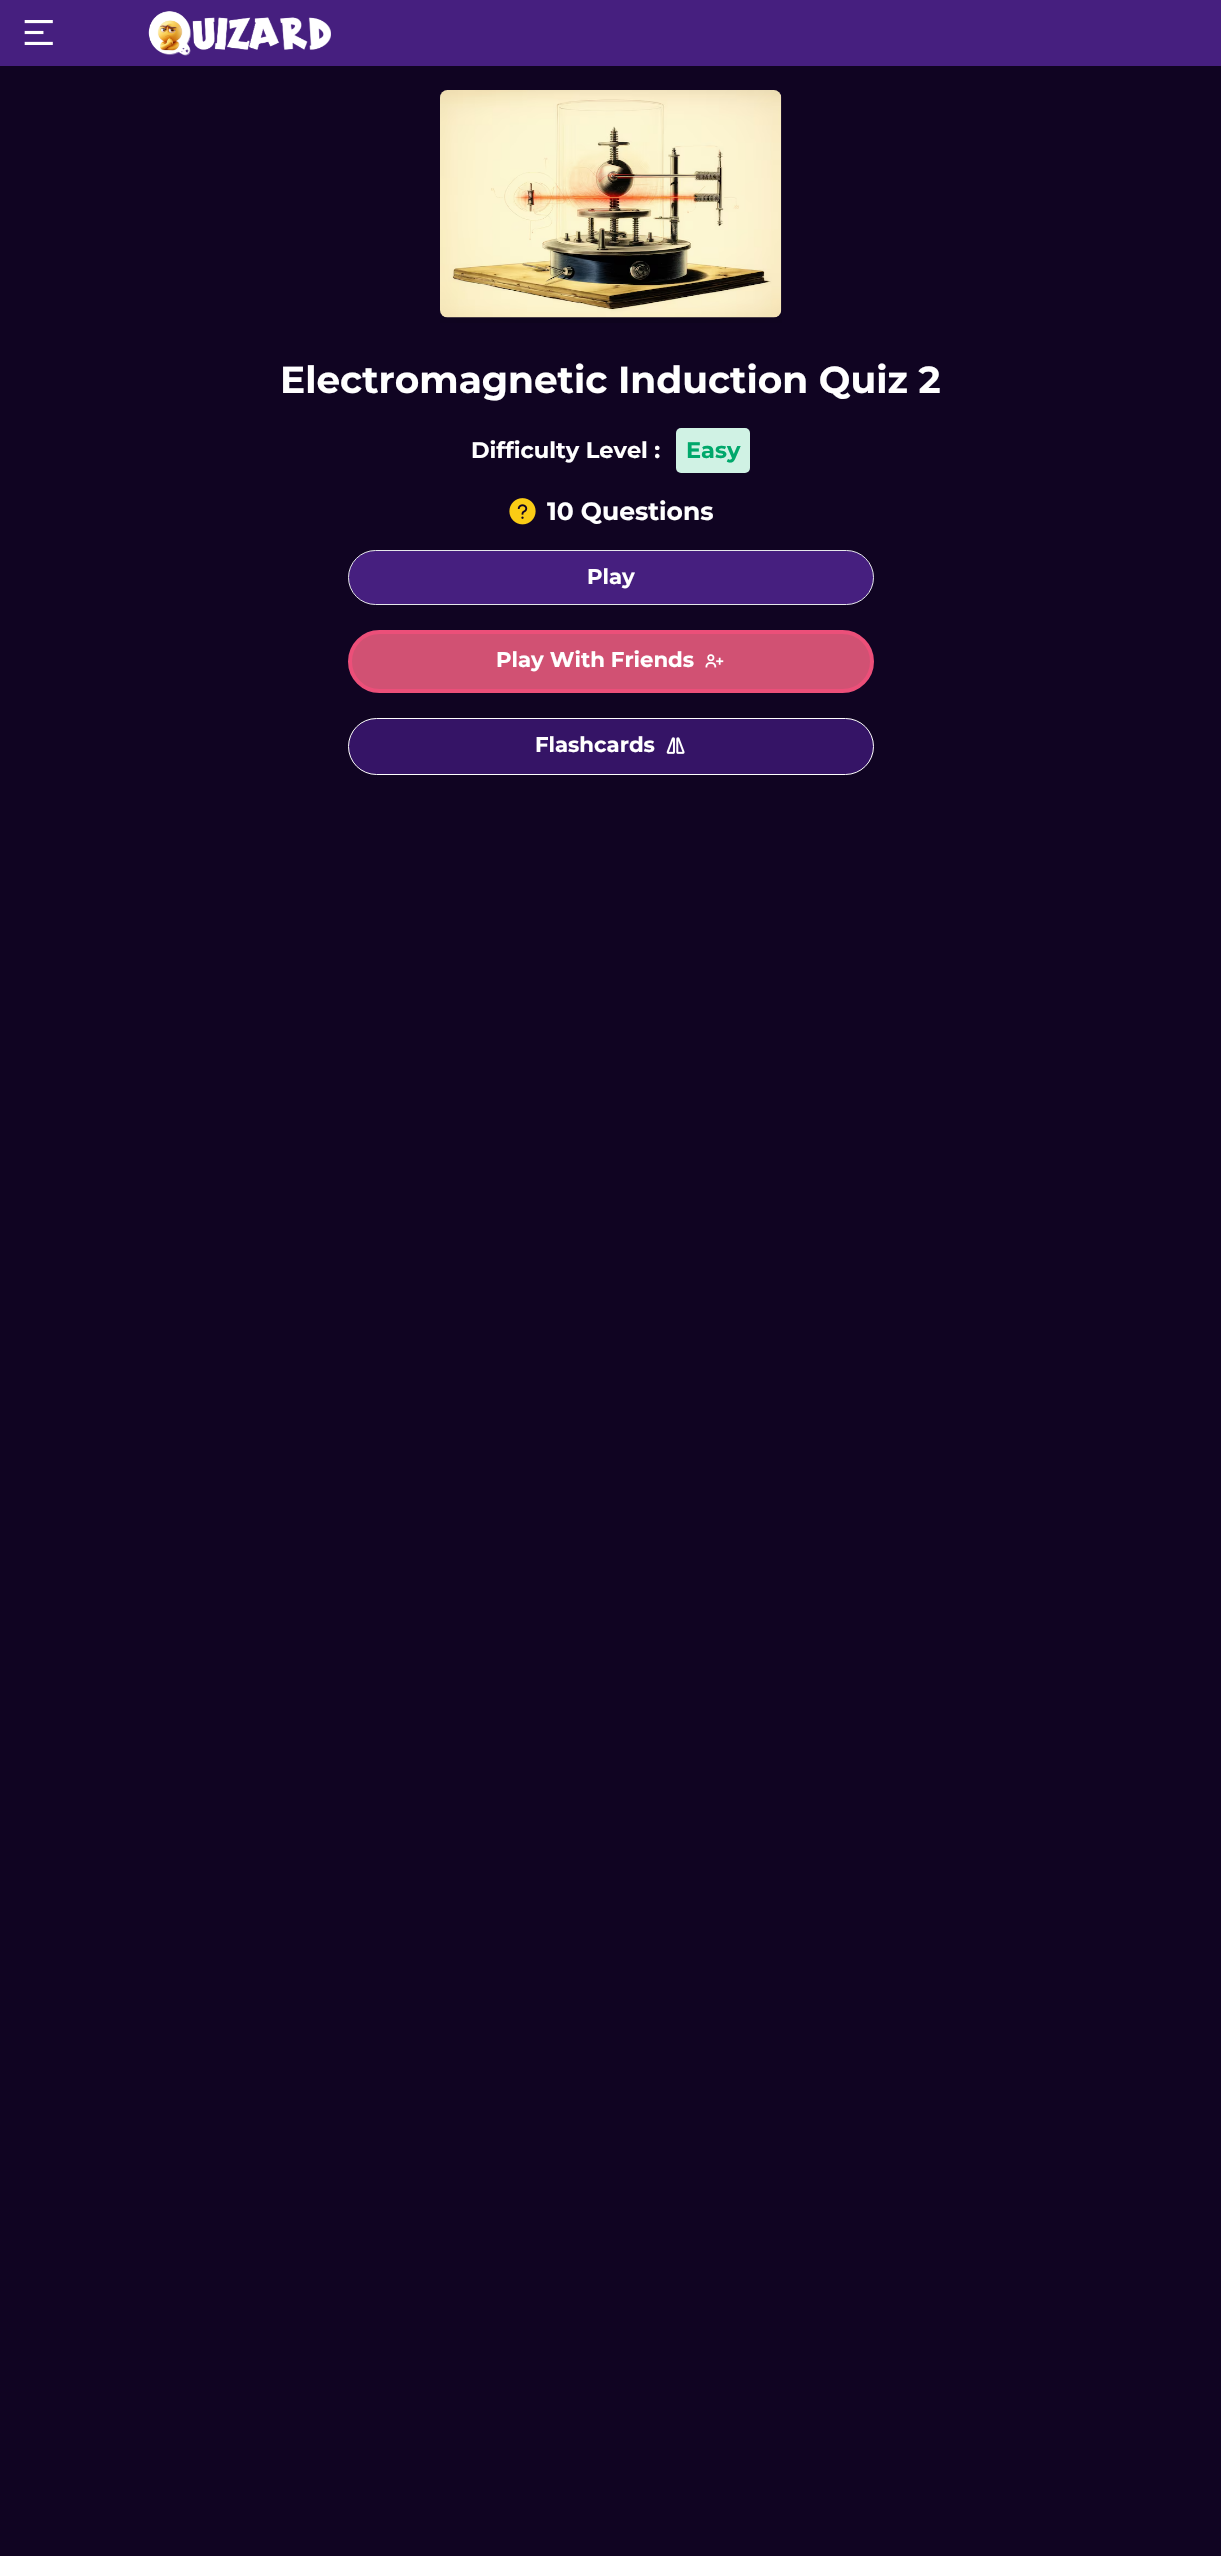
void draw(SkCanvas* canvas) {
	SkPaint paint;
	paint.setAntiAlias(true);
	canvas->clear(0xff100422);
	paint.setColor(0xff461f7f);
	canvas->drawRect(SkRect::MakeXYWH(0, 0, 1221, 66), paint);
	canvas->drawImageRect(SkImages::DeferredFromEncodedData(SkData::MakeFromFileName("img1.png")), SkRect::MakeXYWH(24, 20, 29, 25), SkSamplingOptions());
	canvas->drawImageRect(SkImages::DeferredFromEncodedData(SkData::MakeFromFileName("img2.png")), SkRect::MakeXYWH(148, 11, 183, 45), SkSamplingOptions());
	canvas->drawImageRect(SkImages::DeferredFromEncodedData(SkData::MakeFromFileName("img3.png")), SkRect::MakeXYWH(440, 90, 342, 233), SkSamplingOptions());
	SkFont f1(fontMgr->matchFamilyStyle("Montserrat", SkFontStyle(100, SkFontStyle::kNormal_Width, SkFontStyle::kUpright_Slant)), 37.5);
	f1.setSubpixel(true);
	paint.setColor(0xffffffff);
	canvas->drawString("Electromagnetic Induction Quiz 2", 280, 393, f1, paint);
	SkFont f2(fontMgr->matchFamilyStyle("Montserrat", SkFontStyle(100, SkFontStyle::kNormal_Width, SkFontStyle::kUpright_Slant)), 22.5);
	f2.setSubpixel(true);
	canvas->drawString("Difficulty Level :", 471, 458, f2, paint);
	paint.setColor(0xffd0f2e4);
	canvas->drawRoundRect(SkRect::MakeXYWH(676, 428, 74, 45), 5, 5, paint);
	paint.setColor(0xff00a86b);
	canvas->drawString("Easy", 686, 458, f2, paint);
	canvas->drawImageRect(SkImages::DeferredFromEncodedData(SkData::MakeFromFileName("img4.png")), SkRect::MakeXYWH(509, 498, 27, 27), SkSamplingOptions());
	SkFont f3(fontMgr->matchFamilyStyle("Montserrat", SkFontStyle(100, SkFontStyle::kNormal_Width, SkFontStyle::kUpright_Slant)), 25);
	f3.setSubpixel(true);
	paint.setColor(0xffffffff);
	canvas->drawString("10 Questions", 547, 520, f3, paint);
	paint.setColor(0xff461f7f);
	canvas->drawRoundRect(SkRect::MakeXYWH(348.5, 550.5, 525, 54), 27, 27, paint);
	paint.setStroke(true);
	paint.setStrokeWidth(1);
	paint.setColor(0xffe5e7eb);
	canvas->drawRoundRect(SkRect::MakeXYWH(348.5, 550.5, 525, 54), 27, 27, paint);
	SkFont f4(fontMgr->matchFamilyStyle("Montserrat", SkFontStyle(100, SkFontStyle::kNormal_Width, SkFontStyle::kUpright_Slant)), 21.25);
	f4.setSubpixel(true);
	paint.setStroke(false);
	paint.setColor(0xffffffff);
	canvas->drawString("Play", 587, 584, f4, paint);
	paint.setColor(0xffd15173);
	canvas->drawRoundRect(SkRect::MakeXYWH(350, 632, 522, 59), 29.5, 29.5, paint);
	paint.setStroke(true);
	paint.setStrokeWidth(4);
	paint.setColor(0xffec4f79);
	canvas->drawRoundRect(SkRect::MakeXYWH(350, 632, 522, 59), 29.5, 29.5, paint);
	paint.setStroke(false);
	paint.setColor(0xffffffff);
	canvas->drawString("Play With Friends", 496, 667, f4, paint);
	canvas->drawImageRect(SkImages::DeferredFromEncodedData(SkData::MakeFromFileName("img5.png")), SkRect::MakeXYWH(705, 654, 19, 14), SkSamplingOptions());
	paint.setColor(0xff351466);
	canvas->drawRoundRect(SkRect::MakeXYWH(348.5, 718.5, 525, 56), 28, 28, paint);
	paint.setStroke(true);
	paint.setStrokeWidth(1);
	paint.setColor(0xffffffff);
	canvas->drawRoundRect(SkRect::MakeXYWH(348.5, 718.5, 525, 56), 28, 28, paint);
	paint.setStroke(false);
	canvas->drawString("Flashcards", 535, 752, f4, paint);
	canvas->drawImageRect(SkImages::DeferredFromEncodedData(SkData::MakeFromFileName("img6.png")), SkRect::MakeXYWH(666, 737, 19, 17), SkSamplingOptions());
}
